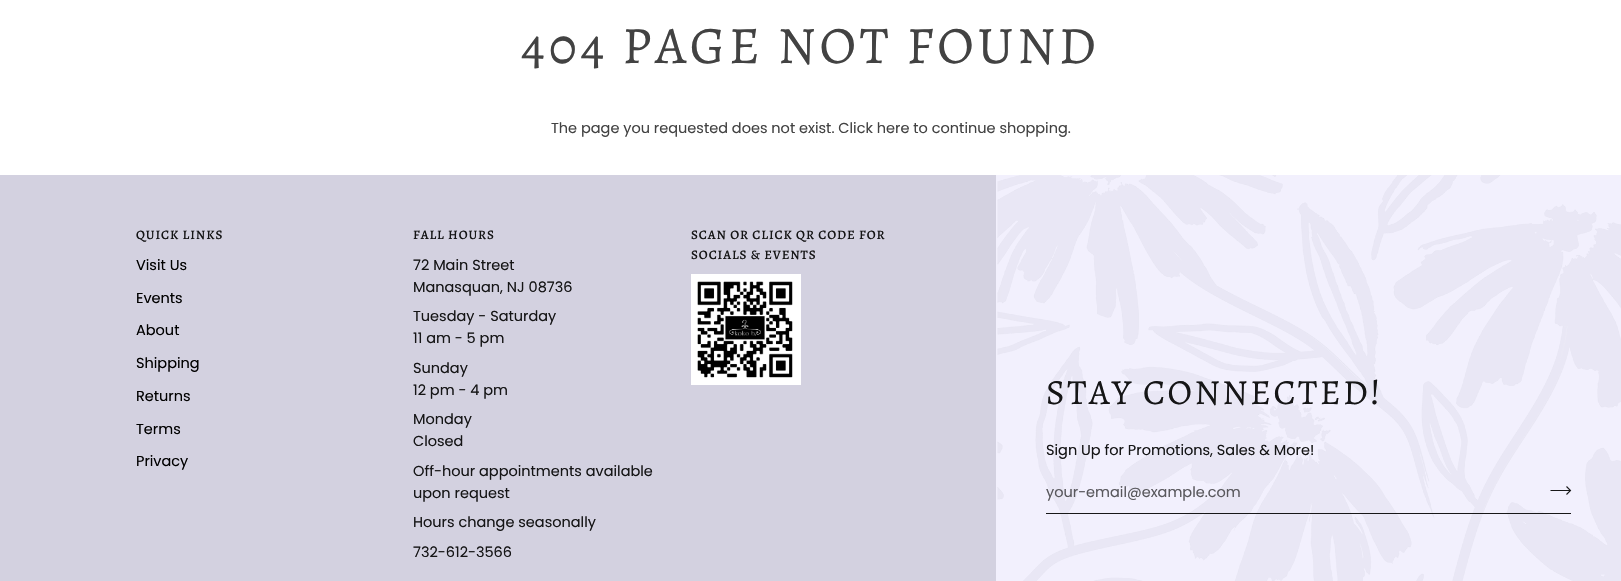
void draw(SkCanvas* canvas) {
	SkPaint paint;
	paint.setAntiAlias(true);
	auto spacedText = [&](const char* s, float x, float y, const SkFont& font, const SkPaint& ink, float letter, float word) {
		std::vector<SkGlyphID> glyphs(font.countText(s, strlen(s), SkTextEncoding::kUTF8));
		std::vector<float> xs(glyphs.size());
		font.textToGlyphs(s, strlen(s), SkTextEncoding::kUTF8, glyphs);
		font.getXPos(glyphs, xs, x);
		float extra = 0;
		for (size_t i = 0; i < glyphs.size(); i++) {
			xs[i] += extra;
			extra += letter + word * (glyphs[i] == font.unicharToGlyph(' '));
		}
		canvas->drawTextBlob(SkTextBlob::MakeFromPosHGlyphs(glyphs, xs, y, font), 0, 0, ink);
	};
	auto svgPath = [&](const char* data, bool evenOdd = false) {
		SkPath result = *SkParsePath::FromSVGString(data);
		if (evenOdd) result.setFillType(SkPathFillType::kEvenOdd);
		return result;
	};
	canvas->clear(0xffffffff);
	SkFont f1(fontMgr->matchFamilyStyle("Alegreya", SkFontStyle::Normal()), 52.75);
	f1.setSubpixel(true);
	paint.setColor(0xff424242);
	spacedText("404 PAGE NOT FOUND", 521, 63, f1, paint, 3.75, 0);
	SkFont f2(fontMgr->matchFamilyStyle("Poppins", SkFontStyle::Normal()), 14.5);
	f2.setSubpixel(true);
	canvas->drawString("The page you requested does not exist. Click here to continue shopping.", 551, 133, f2, paint);
	paint.setColor(0xffd3d1e0);
	canvas->drawRect(SkRect::MakeXYWH(0, 175, 996, 406), paint);
	SkFont f3(fontMgr->matchFamilyStyle("Alegreya", SkFontStyle(500, SkFontStyle::kNormal_Width, SkFontStyle::kUpright_Slant)), 13);
	f3.setSubpixel(true);
	paint.setColor(0xff151516);
	spacedText("QUICK LINKS", 136, 239, f3, paint, 0.9, 0);
	paint.setColor(0xff000000);
	canvas->drawString("Visit Us", 136, 270, f2, paint);
	canvas->drawString("Events", 136, 303, f2, paint);
	canvas->drawString("About", 136, 335, f2, paint);
	canvas->drawString("Shipping", 136, 368, f2, paint);
	canvas->drawString("Returns", 136, 401, f2, paint);
	canvas->drawString("Terms", 136, 434, f2, paint);
	canvas->drawString("Privacy", 136, 466, f2, paint);
	paint.setColor(0xff151516);
	spacedText("FALL HOURS", 413, 239, f3, paint, 0.9, 0);
	canvas->drawString("72 Main Street", 413, 270, f2, paint);
	canvas->drawString("Manasquan, NJ 08736", 413, 292, f2, paint);
	canvas->drawString("Tuesday - Saturday", 413, 321, f2, paint);
	canvas->drawString("11 am - 5 pm", 413, 343, f2, paint);
	canvas->drawString("Sunday", 413, 373, f2, paint);
	canvas->drawString("12 pm - 4 pm", 413, 395, f2, paint);
	canvas->drawString("Monday", 413, 424, f2, paint);
	canvas->drawString("Closed", 413, 446, f2, paint);
	canvas->drawString("Off-hour appointments available", 413, 476, f2, paint);
	canvas->drawString("upon request", 413, 498, f2, paint);
	canvas->drawString("Hours change seasonally", 413, 527, f2, paint);
	canvas->drawString("732-612-3566", 413, 557, f2, paint);
	spacedText("SCAN OR CLICK QR CODE FOR", 691, 239, f3, paint, 0.9, 0);
	spacedText("SOCIALS & EVENTS", 691, 259, f3, paint, 0.9, 0);
	canvas->drawImageRect(SkImages::DeferredFromEncodedData(SkData::MakeFromFileName("img1.png")), SkRect::MakeXYWH(691, 274, 110, 111), SkSamplingOptions());
	paint.setColor(0xfff2f0fd);
	canvas->drawRect(SkRect::MakeXYWH(996, 175, 625, 406), paint);
	canvas->drawImageRect(SkImages::DeferredFromEncodedData(SkData::MakeFromFileName("img2.png")), SkRect::MakeXYWH(997, 175, 624, 406), SkSamplingOptions());
	SkFont f4(fontMgr->matchFamilyStyle("Alegreya", SkFontStyle::Normal()), 35.25);
	f4.setSubpixel(true);
	paint.setColor(0xff151516);
	spacedText("STAY CONNECTED!", 1046, 404, f4, paint, 2.5, 0);
	canvas->drawString("Sign Up for Promotions, Sales & More!", 1046, 455, f2, paint);
	paint.setColor(0xe6000000);
	canvas->drawRect(SkRect::MakeXYWH(1046, 513, 525, 1), paint);
	paint.setColor(0xff59585d);
	canvas->drawString("your-email@example.com", 1046, 497, f2, paint);
	paint.setStroke(true);
	paint.setStrokeWidth(1.1);
	paint.setColor(0xff181819);
	canvas->drawPath(svgPath("M1566.5 486.5L1570.5 490.5L1566.5 494.5M1550.5 490.5H1570.5"), paint);
}
